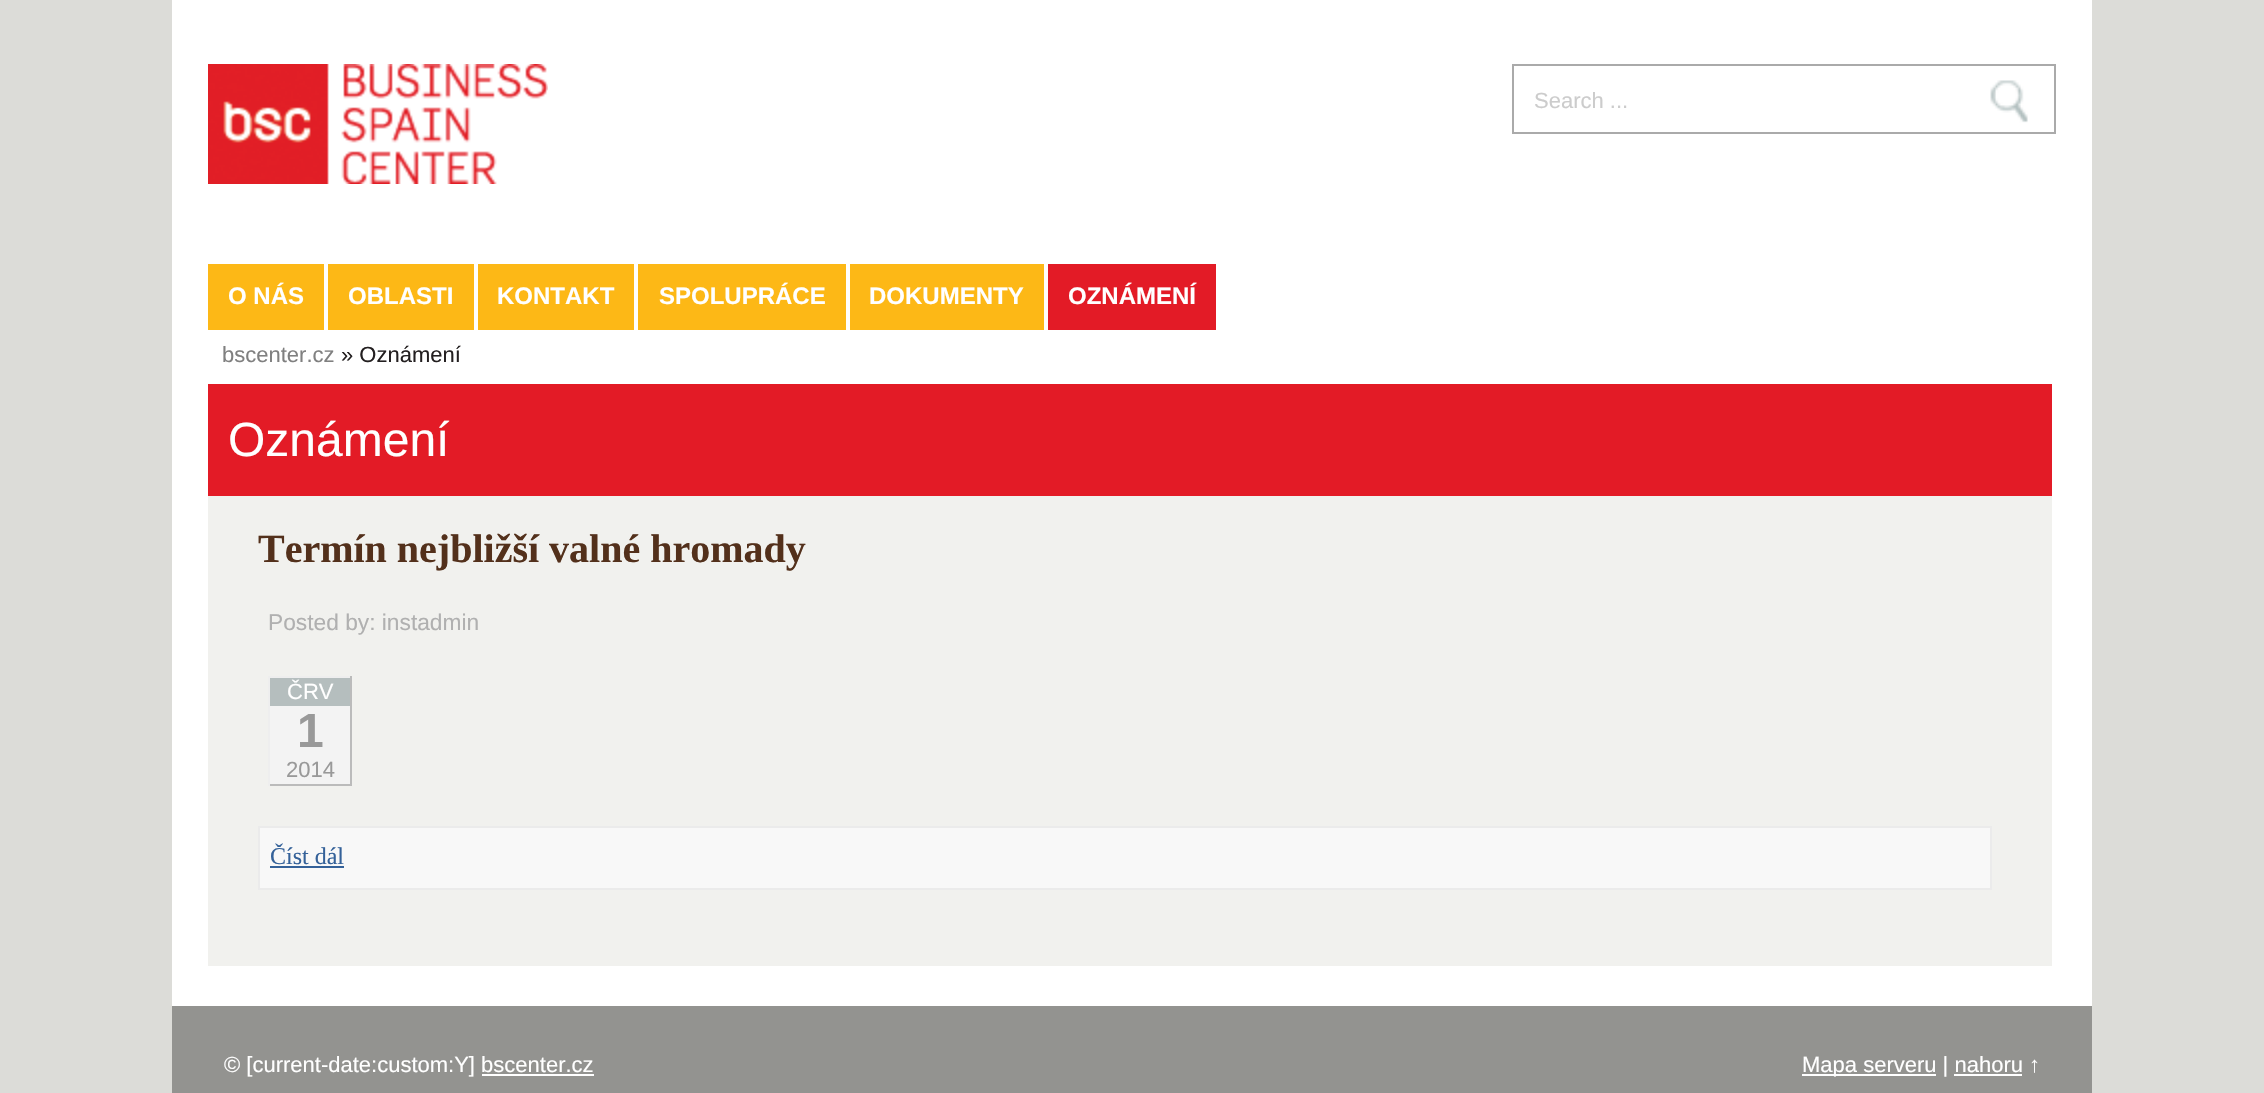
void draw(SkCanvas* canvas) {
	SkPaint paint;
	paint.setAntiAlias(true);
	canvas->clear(0xffdcdcd8);
	paint.setColor(0xffffffff);
	canvas->drawRect(SkRect::MakeXYWH(172, 0, 1920, 1006), paint);
	canvas->drawImageRect(SkImages::DeferredFromEncodedData(SkData::MakeFromFileName("img1.png")), SkRect::MakeXYWH(208, 64, 340, 120), SkSamplingOptions());
	paint.setStroke(true);
	paint.setStrokeWidth(2);
	paint.setColor(0xffaaaaaa);
	canvas->drawRect(SkRect::MakeXYWH(1513, 65, 542, 68), paint);
	SkFont f1(fontMgr->matchFamilyStyle("Liberation Sans", SkFontStyle::Normal()), 22);
	f1.setSubpixel(true);
	paint.setStroke(false);
	paint.setColor(0xffcccccc);
	canvas->drawString("Search ...", 1534, 108, f1, paint);
	canvas->drawImageRect(SkImages::DeferredFromEncodedData(SkData::MakeFromFileName("img2.png")), SkRect::MakeXYWH(1990, 80, 38, 43), SkSamplingOptions());
	paint.setColor(0xfffdb816);
	canvas->drawRect(SkRect::MakeXYWH(208, 264, 116, 66), paint);
	SkFont f2(fontMgr->matchFamilyStyle("Liberation Sans", SkFontStyle::Bold()), 24);
	f2.setSubpixel(true);
	paint.setColor(0xffffffff);
	canvas->drawString("O NÁS", 228, 304, f2, paint);
	paint.setColor(0xfffdb816);
	canvas->drawRect(SkRect::MakeXYWH(328, 264, 146, 66), paint);
	paint.setColor(0xffffffff);
	canvas->drawString("OBLASTI", 348, 304, f2, paint);
	paint.setColor(0xfffdb816);
	canvas->drawRect(SkRect::MakeXYWH(478, 264, 156, 66), paint);
	paint.setColor(0xffffffff);
	canvas->drawString("KONTAKT", 497, 304, f2, paint);
	paint.setColor(0xfffdb816);
	canvas->drawRect(SkRect::MakeXYWH(638, 264, 208, 66), paint);
	paint.setColor(0xffffffff);
	canvas->drawString("SPOLUPRÁCE", 659, 304, f2, paint);
	paint.setColor(0xfffdb816);
	canvas->drawRect(SkRect::MakeXYWH(850, 264, 194, 66), paint);
	paint.setColor(0xffffffff);
	canvas->drawString("DOKUMENTY", 869, 304, f2, paint);
	paint.setColor(0xffe31b26);
	canvas->drawRect(SkRect::MakeXYWH(1048, 264, 168, 66), paint);
	paint.setColor(0xffffffff);
	canvas->drawString("OZNÁMENÍ", 1068, 304, f2, paint);
	paint.setColor(0xff808080);
	canvas->drawString("bscenter.cz", 222, 362, f1, paint);
	paint.setColor(0xff231f20);
	canvas->drawString("» Oznámení", 341, 362, f1, paint);
	paint.setColor(0xffe31b26);
	canvas->drawRect(SkRect::MakeXYWH(208, 384, 1844, 112), paint);
	SkFont f3(fontMgr->matchFamilyStyle("Liberation Sans", SkFontStyle::Normal()), 48);
	f3.setSubpixel(true);
	paint.setColor(0xffffffff);
	canvas->drawString("Oznámení", 228, 456, f3, paint);
	paint.setColor(0xfff1f1ee);
	canvas->drawRect(SkRect::MakeXYWH(208, 496, 1844, 470), paint);
	SkFont f4(fontMgr->matchFamilyStyle("Liberation Serif", SkFontStyle::Bold()), 40);
	f4.setSubpixel(true);
	paint.setColor(0xff53301b);
	canvas->drawString("Termín nejbližší valné hromady", 258, 562, f4, paint);
	SkFont f5(fontMgr->matchFamilyStyle("Liberation Sans", SkFontStyle::Normal()), 22.75);
	f5.setSubpixel(true);
	paint.setColor(0xffb0b0b0);
	canvas->drawString("Posted by: instadmin", 268, 630, f5, paint);
	paint.setColor(0xfff3f3f3);
	canvas->drawRect(SkRect::MakeXYWH(270, 706, 80, 78), paint);
	paint.setColor(0xffeeeeee);
	canvas->drawRect(SkRect::MakeXYWH(268, 676, 84, 2), paint);
	paint.setColor(0xffbbbbbb);
	canvas->drawRect(SkRect::MakeXYWH(350, 676, 2, 110), paint);
	canvas->drawRect(SkRect::MakeXYWH(268, 784, 84, 2), paint);
	paint.setColor(0xffeeeeee);
	canvas->drawRect(SkRect::MakeXYWH(268, 676, 2, 110), paint);
	paint.setColor(0xffb5bebe);
	canvas->drawRect(SkRect::MakeXYWH(270, 678, 80, 28), paint);
	paint.setColor(0xffffffff);
	canvas->drawString("ČRV", 287, 699, f1, paint);
	SkFont f6(fontMgr->matchFamilyStyle("Liberation Sans", SkFontStyle::Bold()), 48);
	f6.setSubpixel(true);
	paint.setColor(0xff999999);
	canvas->drawString("1", 297, 747, f6, paint);
	canvas->drawString("2014", 286, 777, f1, paint);
	paint.setColor(0xfff8f8f8);
	canvas->drawRect(SkRect::MakeXYWH(259, 827, 1732, 62), paint);
	paint.setStroke(true);
	paint.setColor(0xffebebeb);
	canvas->drawRect(SkRect::MakeXYWH(259, 827, 1732, 62), paint);
	SkFont f7(fontMgr->matchFamilyStyle("Liberation Serif", SkFontStyle::Normal()), 24);
	f7.setSubpixel(true);
	paint.setStroke(false);
	paint.setColor(0xff346199);
	canvas->drawString("Číst dál", 270, 864, f7, paint);
	canvas->drawRect(SkRect::MakeXYWH(270, 866, 74, 2), paint);
	paint.setColor(0xff939390);
	canvas->drawRect(SkRect::MakeXYWH(172, 1006, 1920, 87), paint);
	paint.setColor(0xffffffff);
	canvas->drawString("© [current-date:custom:Y] bscenter.cz", 224, 1072, f1, paint);
	canvas->drawRect(SkRect::MakeXYWH(1802, 1074, 134, 2), paint);
	canvas->drawString("Mapa serveru | nahoru ↑", 1802, 1072, f1, paint);
	canvas->drawRect(SkRect::MakeXYWH(1954, 1074, 68, 2), paint);
	canvas->drawRect(SkRect::MakeXYWH(482, 1074, 112, 2), paint);
}
